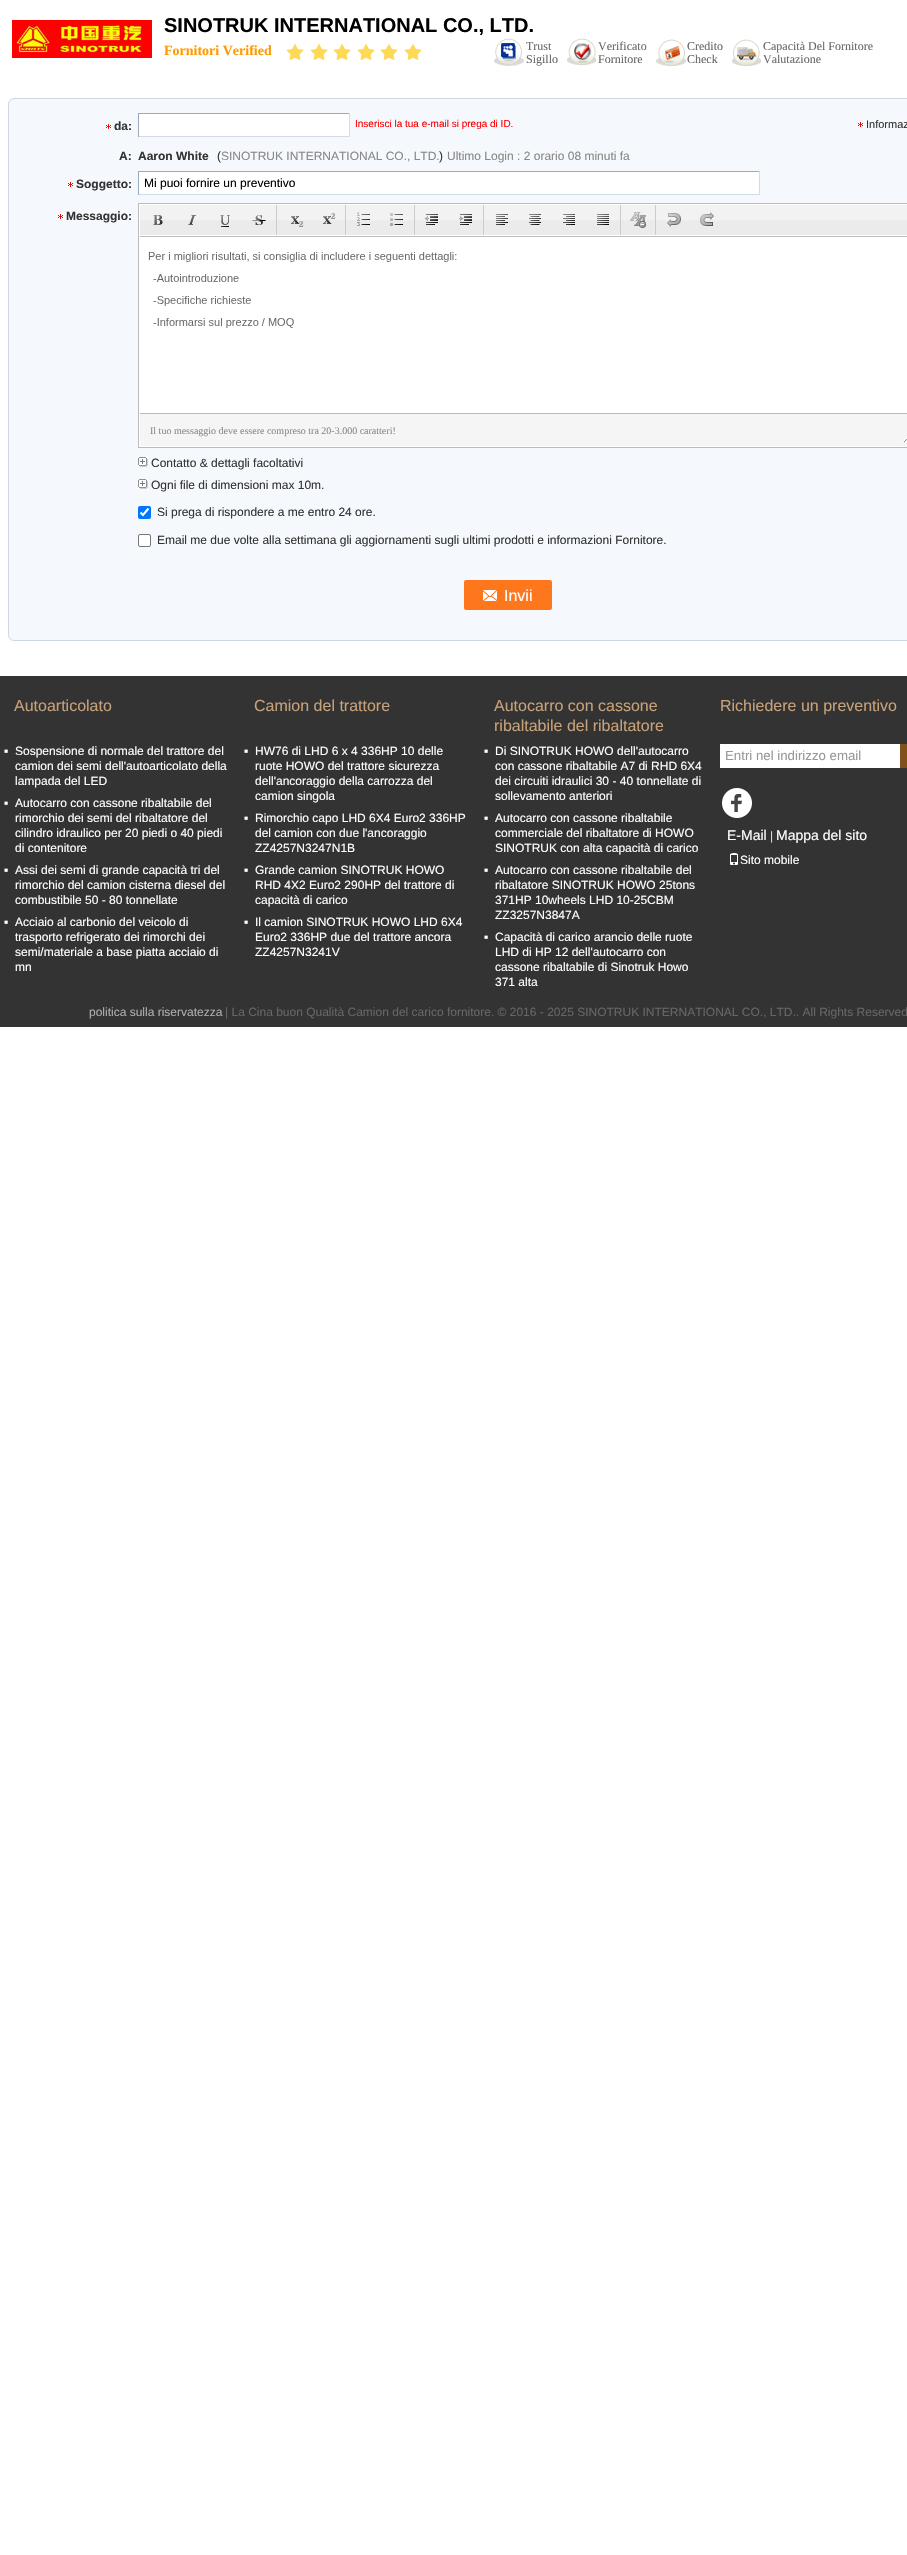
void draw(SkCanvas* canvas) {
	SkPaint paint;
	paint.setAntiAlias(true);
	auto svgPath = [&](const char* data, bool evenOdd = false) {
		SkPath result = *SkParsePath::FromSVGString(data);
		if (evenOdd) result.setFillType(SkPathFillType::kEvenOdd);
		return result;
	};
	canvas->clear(0xffffffff);
	canvas->drawImageRect(SkImages::DeferredFromEncodedData(SkData::MakeFromFileName("img1.png")), SkRect::MakeXYWH(12, 20, 140, 38), SkSamplingOptions());
	SkFont f1(fontMgr->matchFamilyStyle("Liberation Sans", SkFontStyle::Bold()), 20);
	f1.setSubpixel(true);
	paint.setColor(0xff000000);
	canvas->drawString("SINOTRUK INTERNATIONAL CO., LTD.", 164, 32, f1, paint);
	SkFont f2(fontMgr->matchFamilyStyle("Liberation Serif", SkFontStyle::Bold()), 14);
	f2.setSubpixel(true);
	paint.setColor(0xffff9900);
	canvas->drawString("Fornitori Verified", 164, 55, f2, paint);
	canvas->drawImageRect(SkImages::DeferredFromEncodedData(SkData::MakeFromFileName("img2.png")), SkRect::MakeXYWH(286, 44, 18, 17), SkSamplingOptions());
	canvas->drawImageRect(SkImages::DeferredFromEncodedData(SkData::MakeFromFileName("img3.png")), SkRect::MakeXYWH(310, 44, 18, 17), SkSamplingOptions());
	canvas->drawImageRect(SkImages::DeferredFromEncodedData(SkData::MakeFromFileName("img2.png")), SkRect::MakeXYWH(333, 44, 18, 17), SkSamplingOptions());
	canvas->drawImageRect(SkImages::DeferredFromEncodedData(SkData::MakeFromFileName("img3.png")), SkRect::MakeXYWH(357, 44, 18, 17), SkSamplingOptions());
	canvas->drawImageRect(SkImages::DeferredFromEncodedData(SkData::MakeFromFileName("img3.png")), SkRect::MakeXYWH(380, 44, 18, 17), SkSamplingOptions());
	canvas->drawImageRect(SkImages::DeferredFromEncodedData(SkData::MakeFromFileName("img2.png")), SkRect::MakeXYWH(404, 44, 18, 17), SkSamplingOptions());
	canvas->drawImageRect(SkImages::DeferredFromEncodedData(SkData::MakeFromFileName("img4.png")), SkRect::MakeXYWH(494, 38, 30, 28), SkSamplingOptions());
	SkFont f3(fontMgr->matchFamilyStyle("Liberation Serif", SkFontStyle::Normal()), 12);
	f3.setSubpixel(true);
	paint.setColor(0xff666666);
	canvas->drawString("Trust", 526, 50, f3, paint);
	canvas->drawString("Sigillo", 526, 63, f3, paint);
	canvas->drawImageRect(SkImages::DeferredFromEncodedData(SkData::MakeFromFileName("img5.png")), SkRect::MakeXYWH(567, 38, 30, 28), SkSamplingOptions());
	canvas->drawString("Verificato", 598, 50, f3, paint);
	canvas->drawString("Fornitore", 598, 63, f3, paint);
	canvas->drawImageRect(SkImages::DeferredFromEncodedData(SkData::MakeFromFileName("img6.png")), SkRect::MakeXYWH(656, 39, 30, 27), SkSamplingOptions());
	canvas->drawString("Credito", 687, 50, f3, paint);
	canvas->drawString("Check", 687, 63, f3, paint);
	canvas->drawImageRect(SkImages::DeferredFromEncodedData(SkData::MakeFromFileName("img7.png")), SkRect::MakeXYWH(732, 39, 29, 27), SkSamplingOptions());
	canvas->drawString("Capacità Del Fornitore", 763, 50, f3, paint);
	canvas->drawString("Valutazione", 763, 63, f3, paint);
	paint.setColor(0xfff5f8fd);
	canvas->drawRoundRect(SkRect::MakeXYWH(8.5, 98.5, 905, 542), 5.5, 5.5, paint);
	paint.setStroke(true);
	paint.setStrokeWidth(1);
	paint.setColor(0xffcfd7e4);
	canvas->drawRoundRect(SkRect::MakeXYWH(8.5, 98.5, 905, 542), 5.5, 5.5, paint);
	canvas->drawImageRect(SkImages::DeferredFromEncodedData(SkData::MakeFromFileName("img8.png")), SkRect::MakeXYWH(106, 124, 5, 5), SkSamplingOptions());
	SkFont f4(fontMgr->matchFamilyStyle("Liberation Sans", SkFontStyle::Bold()), 12);
	f4.setSubpixel(true);
	paint.setStroke(false);
	paint.setColor(0xff333333);
	canvas->drawString("da:", 114, 130, f4, paint);
	paint.setColor(0xffffffff);
	canvas->drawRect(SkRect::MakeXYWH(139, 114, 210, 22), paint);
	paint.setColor(0xff99aabd);
	canvas->drawRect(SkRect::MakeXYWH(138, 113, 212, 1), paint);
	paint.setColor(0xffd2dce8);
	canvas->drawRect(SkRect::MakeXYWH(349, 113, 1, 24), paint);
	canvas->drawRect(SkRect::MakeXYWH(138, 136, 212, 1), paint);
	paint.setColor(0xff99aabd);
	canvas->drawRect(SkRect::MakeXYWH(138, 113, 1, 24), paint);
	SkFont f5(fontMgr->matchFamilyStyle("Liberation Sans", SkFontStyle::Normal()), 10);
	f5.setSubpixel(true);
	paint.setColor(0xffff0000);
	canvas->drawString("Inserisci la tua e-mail si prega di ID.", 355, 127, f5, paint);
	canvas->drawImageRect(SkImages::DeferredFromEncodedData(SkData::MakeFromFileName("img8.png")), SkRect::MakeXYWH(858, 122, 5, 5), SkSamplingOptions());
	SkFont f6(fontMgr->matchFamilyStyle("Liberation Sans", SkFontStyle::Normal()), 11);
	f6.setSubpixel(true);
	paint.setColor(0xff333333);
	canvas->drawString("Informaz", 866, 128, f6, paint);
	canvas->drawString("A:", 119, 160, f4, paint);
	canvas->drawString("Aaron White", 138, 160, f4, paint);
	SkFont f7(fontMgr->matchFamilyStyle("Liberation Sans", SkFontStyle::Normal()), 12);
	f7.setSubpixel(true);
	canvas->drawString("(", 217, 160, f7, paint);
	paint.setColor(0xff888888);
	canvas->drawString("SINOTRUK INTERNATIONAL CO., LTD.", 221, 160, f7, paint);
	paint.setColor(0xff333333);
	canvas->drawString(")", 439, 160, f7, paint);
	paint.setColor(0xff888888);
	canvas->drawString("Ultimo Login : 2 orario 08 minuti fa", 447, 160, f7, paint);
	canvas->drawImageRect(SkImages::DeferredFromEncodedData(SkData::MakeFromFileName("img8.png")), SkRect::MakeXYWH(68, 182, 5, 5), SkSamplingOptions());
	paint.setColor(0xff333333);
	canvas->drawString("Soggetto:", 76, 188, f4, paint);
	paint.setColor(0xffffffff);
	canvas->drawRect(SkRect::MakeXYWH(139, 172, 620, 22), paint);
	paint.setColor(0xff99aabd);
	canvas->drawRect(SkRect::MakeXYWH(138, 171, 622, 1), paint);
	paint.setColor(0xffd2dce8);
	canvas->drawRect(SkRect::MakeXYWH(759, 171, 1, 24), paint);
	canvas->drawRect(SkRect::MakeXYWH(138, 194, 622, 1), paint);
	paint.setColor(0xff99aabd);
	canvas->drawRect(SkRect::MakeXYWH(138, 171, 1, 24), paint);
	paint.setColor(0xff000000);
	canvas->drawString("Mi puoi fornire un preventivo", 144, 187, f7, paint);
	canvas->drawImageRect(SkImages::DeferredFromEncodedData(SkData::MakeFromFileName("img8.png")), SkRect::MakeXYWH(58, 214, 5, 5), SkSamplingOptions());
	paint.setColor(0xff333333);
	canvas->drawString("Messaggio:", 66, 220, f4, paint);
	paint.setColor(0xffffffff);
	canvas->drawRect(SkRect::MakeXYWH(138.5, 203.5, 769, 244), paint);
	paint.setStroke(true);
	paint.setColor(0xffbbbbbb);
	canvas->drawRect(SkRect::MakeXYWH(138.5, 203.5, 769, 244), paint);
	canvas->drawImageRect(SkImages::DeferredFromEncodedData(SkData::MakeFromFileName("img9.png")), SkRect::MakeXYWH(140, 205, 767, 30), SkSamplingOptions());
	paint.setStroke(false);
	canvas->drawRect(SkRect::MakeXYWH(140, 236, 767, 1), paint);
	canvas->drawImageRect(SkImages::DeferredFromEncodedData(SkData::MakeFromFileName("img10.png")), SkRect::MakeXYWH(153, 215, 10, 10), SkSamplingOptions());
	canvas->drawImageRect(SkImages::DeferredFromEncodedData(SkData::MakeFromFileName("img11.png")), SkRect::MakeXYWH(188, 215, 8, 10), SkSamplingOptions());
	canvas->drawImageRect(SkImages::DeferredFromEncodedData(SkData::MakeFromFileName("img12.png")), SkRect::MakeXYWH(220, 215, 10, 12), SkSamplingOptions());
	canvas->drawImageRect(SkImages::DeferredFromEncodedData(SkData::MakeFromFileName("img13.png")), SkRect::MakeXYWH(252, 215, 14, 10), SkSamplingOptions());
	paint.setColor(0xffcccccc);
	canvas->drawRect(SkRect::MakeXYWH(276, 205, 1, 30), paint);
	canvas->drawImageRect(SkImages::DeferredFromEncodedData(SkData::MakeFromFileName("img14.png")), SkRect::MakeXYWH(291, 216, 13, 11), SkSamplingOptions());
	canvas->drawImageRect(SkImages::DeferredFromEncodedData(SkData::MakeFromFileName("img15.png")), SkRect::MakeXYWH(323, 213, 13, 11), SkSamplingOptions());
	canvas->drawRect(SkRect::MakeXYWH(345, 205, 1, 30), paint);
	canvas->drawImageRect(SkImages::DeferredFromEncodedData(SkData::MakeFromFileName("img16.png")), SkRect::MakeXYWH(357, 212, 13, 14), SkSamplingOptions());
	canvas->drawImageRect(SkImages::DeferredFromEncodedData(SkData::MakeFromFileName("img17.png")), SkRect::MakeXYWH(390, 213, 13, 13), SkSamplingOptions());
	canvas->drawRect(SkRect::MakeXYWH(414, 205, 1, 30), paint);
	canvas->drawImageRect(SkImages::DeferredFromEncodedData(SkData::MakeFromFileName("img18.png")), SkRect::MakeXYWH(424, 214, 14, 11), SkSamplingOptions());
	canvas->drawImageRect(SkImages::DeferredFromEncodedData(SkData::MakeFromFileName("img19.png")), SkRect::MakeXYWH(459, 214, 13, 11), SkSamplingOptions());
	canvas->drawRect(SkRect::MakeXYWH(483, 205, 1, 30), paint);
	canvas->drawImageRect(SkImages::DeferredFromEncodedData(SkData::MakeFromFileName("img20.png")), SkRect::MakeXYWH(496, 214, 12, 11), SkSamplingOptions());
	canvas->drawImageRect(SkImages::DeferredFromEncodedData(SkData::MakeFromFileName("img21.png")), SkRect::MakeXYWH(529, 214, 12, 11), SkSamplingOptions());
	canvas->drawImageRect(SkImages::DeferredFromEncodedData(SkData::MakeFromFileName("img22.png")), SkRect::MakeXYWH(563, 214, 12, 11), SkSamplingOptions());
	canvas->drawImageRect(SkImages::DeferredFromEncodedData(SkData::MakeFromFileName("img23.png")), SkRect::MakeXYWH(597, 214, 12, 11), SkSamplingOptions());
	canvas->drawRect(SkRect::MakeXYWH(620, 205, 1, 30), paint);
	canvas->drawImageRect(SkImages::DeferredFromEncodedData(SkData::MakeFromFileName("img24.png")), SkRect::MakeXYWH(630, 212, 16, 16), SkSamplingOptions());
	canvas->drawRect(SkRect::MakeXYWH(655, 205, 1, 30), paint);
	canvas->drawImageRect(SkImages::DeferredFromEncodedData(SkData::MakeFromFileName("img25.png")), SkRect::MakeXYWH(667, 213, 14, 14), SkSamplingOptions());
	canvas->drawImageRect(SkImages::DeferredFromEncodedData(SkData::MakeFromFileName("img26.png")), SkRect::MakeXYWH(700, 212, 14, 14), SkSamplingOptions());
	canvas->drawImageRect(SkImages::DeferredFromEncodedData(SkData::MakeFromFileName("img27.png")), SkRect::MakeXYWH(148, 252, 309, 76), SkSamplingOptions());
	paint.setColor(0xfff5f5f5);
	canvas->drawRect(SkRect::MakeXYWH(140, 414, 767, 32), paint);
	paint.setColor(0xffbbbbbb);
	canvas->drawRect(SkRect::MakeXYWH(140, 413, 767, 1), paint);
	SkFont f8(fontMgr->matchFamilyStyle("Liberation Serif", SkFontStyle::Normal()), 10);
	f8.setSubpixel(true);
	paint.setColor(0xff888888);
	canvas->drawString("Il tuo messaggio deve essere compreso tra 20-3.000 caratteri!", 150, 434, f8, paint);
	canvas->drawImageRect(SkImages::DeferredFromEncodedData(SkData::MakeFromFileName("img28.png")), SkRect::MakeXYWH(903, 438, 4, 4), SkSamplingOptions());
	canvas->drawImageRect(SkImages::DeferredFromEncodedData(SkData::MakeFromFileName("img29.png")), SkRect::MakeXYWH(138, 457, 10, 10), SkSamplingOptions());
	paint.setColor(0xff333333);
	canvas->drawString("Contatto & dettagli facoltativi", 151, 467, f7, paint);
	canvas->drawImageRect(SkImages::DeferredFromEncodedData(SkData::MakeFromFileName("img29.png")), SkRect::MakeXYWH(138, 479, 10, 10), SkSamplingOptions());
	canvas->drawString("Ogni file di dimensioni max 10m.", 151, 489, f7, paint);
	paint.setColor(0xff0075ff);
	canvas->drawRoundRect(SkRect::MakeXYWH(138, 506, 13, 13), 2, 2, paint);
	paint.setStroke(true);
	paint.setStrokeWidth(2.1);
	paint.setColor(0xffffffff);
	canvas->drawPath(svgPath("M140.5 512.5L143 515L148.5 508.5"), paint);
	paint.setStroke(false);
	paint.setColor(0xff333333);
	canvas->drawString("Si prega di rispondere a me entro 24 ore.", 157, 516, f7, paint);
	paint.setColor(0xffffffff);
	canvas->drawRoundRect(SkRect::MakeXYWH(138.5, 534.5, 12, 12), 1.5, 1.5, paint);
	paint.setStroke(true);
	paint.setStrokeWidth(1);
	paint.setColor(0xff767676);
	canvas->drawRoundRect(SkRect::MakeXYWH(138.5, 534.5, 12, 12), 1.5, 1.5, paint);
	paint.setStroke(false);
	paint.setColor(0xff333333);
	canvas->drawString("Email me due volte alla settimana gli aggiornamenti sugli ultimi prodotti e informazioni Fornitore.", 157, 544, f7, paint);
	paint.setColor(0xffff771c);
	canvas->drawRoundRect(SkRect::MakeXYWH(464, 580, 88, 30), 2, 2, paint);
	canvas->drawImageRect(SkImages::DeferredFromEncodedData(SkData::MakeFromFileName("img30.png")), SkRect::MakeXYWH(483, 590, 14, 11), SkSamplingOptions());
	SkFont f9(fontMgr->matchFamilyStyle("Liberation Sans", SkFontStyle::Normal()), 16);
	f9.setSubpixel(true);
	paint.setColor(0xffffffff);
	canvas->drawString("Invii", 504, 601, f9, paint);
	paint.setColor(0xff333333);
	canvas->drawRect(SkRect::MakeXYWH(0, 676, 907, 351), paint);
	paint.setColor(0xffc6a179);
	canvas->drawString("Autoarticolato", 14, 711, f9, paint);
	paint.setColor(0xffffffff);
	canvas->drawString("▪", 4, 755, f7, paint);
	canvas->drawString("Sospensione di normale del trattore del", 15, 755, f7, paint);
	canvas->drawString("camion dei semi dell'autoarticolato della", 15, 770, f7, paint);
	canvas->drawString("lampada del LED", 15, 785, f7, paint);
	canvas->drawString("▪", 4, 807, f7, paint);
	canvas->drawString("Autocarro con cassone ribaltabile del", 15, 807, f7, paint);
	canvas->drawString("rimorchio dei semi del ribaltatore del", 15, 822, f7, paint);
	canvas->drawString("cilindro idraulico per 20 piedi o 40 piedi", 15, 837, f7, paint);
	canvas->drawString("di contenitore", 15, 852, f7, paint);
	canvas->drawString("▪", 4, 874, f7, paint);
	canvas->drawString("Assi dei semi di grande capacità tri del", 15, 874, f7, paint);
	canvas->drawString("rimorchio del camion cisterna diesel del", 15, 889, f7, paint);
	canvas->drawString("combustibile 50 - 80 tonnellate", 15, 904, f7, paint);
	canvas->drawString("▪", 4, 926, f7, paint);
	canvas->drawString("Acciaio al carbonio del veicolo di", 15, 926, f7, paint);
	canvas->drawString("trasporto refrigerato dei rimorchi dei", 15, 941, f7, paint);
	canvas->drawString("semi/materiale a base piatta acciaio di", 15, 956, f7, paint);
	canvas->drawString("mn", 15, 971, f7, paint);
	paint.setColor(0xffc6a179);
	canvas->drawString("Camion del trattore", 254, 711, f9, paint);
	paint.setColor(0xffffffff);
	canvas->drawString("▪", 244, 755, f7, paint);
	canvas->drawString("HW76 di LHD 6 x 4 336HP 10 delle", 255, 755, f7, paint);
	canvas->drawString("ruote HOWO del trattore sicurezza", 255, 770, f7, paint);
	canvas->drawString("dell'ancoraggio della carrozza del", 255, 785, f7, paint);
	canvas->drawString("camion singola", 255, 800, f7, paint);
	canvas->drawString("▪", 244, 822, f7, paint);
	canvas->drawString("Rimorchio capo LHD 6X4 Euro2 336HP", 255, 822, f7, paint);
	canvas->drawString("del camion con due l'ancoraggio", 255, 837, f7, paint);
	canvas->drawString("ZZ4257N3247N1B", 255, 852, f7, paint);
	canvas->drawString("▪", 244, 874, f7, paint);
	canvas->drawString("Grande camion SINOTRUK HOWO", 255, 874, f7, paint);
	canvas->drawString("RHD 4X2 Euro2 290HP del trattore di", 255, 889, f7, paint);
	canvas->drawString("capacità di carico", 255, 904, f7, paint);
	canvas->drawString("▪", 244, 926, f7, paint);
	canvas->drawString("Il camion SINOTRUK HOWO LHD 6X4", 255, 926, f7, paint);
	canvas->drawString("Euro2 336HP due del trattore ancora", 255, 941, f7, paint);
	canvas->drawString("ZZ4257N3241V", 255, 956, f7, paint);
	paint.setColor(0xffc6a179);
	canvas->drawString("Autocarro con cassone", 494, 711, f9, paint);
	canvas->drawString("ribaltabile del ribaltatore", 494, 731, f9, paint);
	paint.setColor(0xffffffff);
	canvas->drawString("▪", 484, 755, f7, paint);
	canvas->drawString("Di SINOTRUK HOWO dell'autocarro", 495, 755, f7, paint);
	canvas->drawString("con cassone ribaltabile A7 di RHD 6X4", 495, 770, f7, paint);
	canvas->drawString("dei circuiti idraulici 30 - 40 tonnellate di", 495, 785, f7, paint);
	canvas->drawString("sollevamento anteriori", 495, 800, f7, paint);
	canvas->drawString("▪", 484, 822, f7, paint);
	canvas->drawString("Autocarro con cassone ribaltabile", 495, 822, f7, paint);
	canvas->drawString("commerciale del ribaltatore di HOWO", 495, 837, f7, paint);
	canvas->drawString("SINOTRUK con alta capacità di carico", 495, 852, f7, paint);
	canvas->drawString("▪", 484, 874, f7, paint);
	canvas->drawString("Autocarro con cassone ribaltabile del", 495, 874, f7, paint);
	canvas->drawString("ribaltatore SINOTRUK HOWO 25tons", 495, 889, f7, paint);
	canvas->drawString("371HP 10wheels LHD 10-25CBM", 495, 904, f7, paint);
	canvas->drawString("ZZ3257N3847A", 495, 919, f7, paint);
	canvas->drawString("▪", 484, 941, f7, paint);
	canvas->drawString("Capacità di carico arancio delle ruote", 495, 941, f7, paint);
	canvas->drawString("LHD di HP 12 dell'autocarro con", 495, 956, f7, paint);
	canvas->drawString("cassone ribaltabile di Sinotruk Howo", 495, 971, f7, paint);
	canvas->drawString("371 alta", 495, 986, f7, paint);
	paint.setColor(0xffc6a179);
	canvas->drawString("Richiedere un preventivo", 720, 711, f9, paint);
	paint.setColor(0xffffffff);
	canvas->drawRect(SkRect::MakeXYWH(720, 744, 180, 24), paint);
	SkFont f10(fontMgr->matchFamilyStyle("Liberation Sans", SkFontStyle::Normal()), 13.25);
	f10.setSubpixel(true);
	paint.setColor(0xff999999);
	canvas->drawString("Entri nel indirizzo email", 725, 760, f10, paint);
	paint.setColor(0xff81511c);
	canvas->drawRect(SkRect::MakeXYWH(900, 744, 7, 24), paint);
	canvas->drawImageRect(SkImages::DeferredFromEncodedData(SkData::MakeFromFileName("img31.png")), SkRect::MakeXYWH(722, 788, 30, 30), SkSamplingOptions());
	SkFont f11(fontMgr->matchFamilyStyle("Liberation Sans", SkFontStyle::Normal()), 14);
	f11.setSubpixel(true);
	paint.setColor(0xffffffff);
	canvas->drawString("E-Mail", 727, 840, f11, paint);
	paint.setColor(0xffdddddd);
	canvas->drawString("|", 770, 840, f7, paint);
	paint.setColor(0xffffffff);
	canvas->drawString("Mappa del sito", 776, 840, f11, paint);
	canvas->drawImageRect(SkImages::DeferredFromEncodedData(SkData::MakeFromFileName("img32.png")), SkRect::MakeXYWH(730, 853, 8, 12), SkSamplingOptions());
	canvas->drawString("Sito mobile", 740, 864, f7, paint);
	paint.setColor(0xffadadad);
	canvas->drawString("politica sulla riservatezza", 89, 1016, f7, paint);
	paint.setColor(0xff666666);
	canvas->drawString("| La Cina buon Qualità Camion del carico fornitore. © 2016 - 2025 SINOTRUK INTERNATIONAL CO., LTD.. All Rights Reserved", 225, 1016, f7, paint);
}
